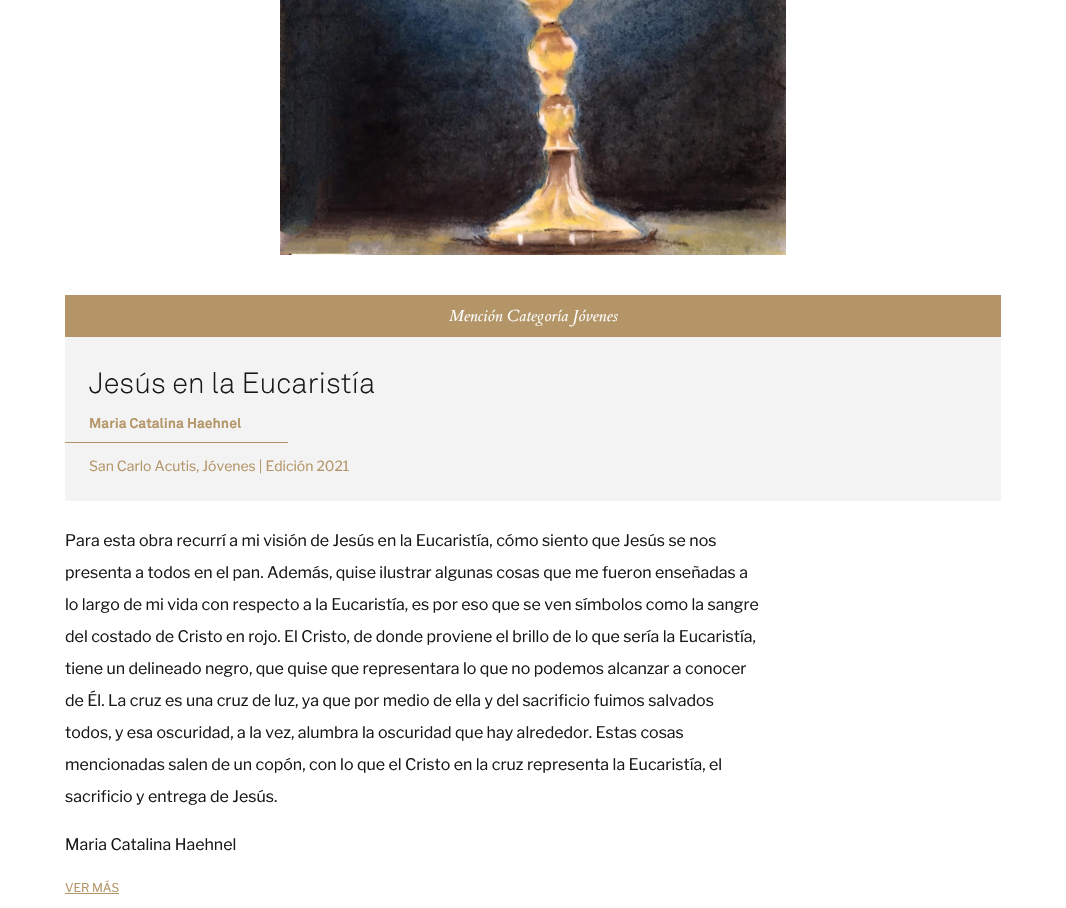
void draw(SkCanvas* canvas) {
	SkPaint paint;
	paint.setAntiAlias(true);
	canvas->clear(0xffffffff);
	canvas->drawImageRect(SkImages::DeferredFromEncodedData(SkData::MakeFromFileName("img1.png")), SkRect::MakeXYWH(280, 0, 506, 255), SkSamplingOptions());
	paint.setColor(0xffb49567);
	canvas->drawRect(SkRect::MakeXYWH(65, 295, 936, 42), paint);
	SkFont f1(fontMgr->matchFamilyStyle("Cardo", SkFontStyle::Italic()), 16);
	f1.setSubpixel(true);
	paint.setColor(0xffffffff);
	canvas->drawString("Mención Categoría Jóvenes", 449, 321, f1, paint);
	paint.setColor(0xfff3f3f3);
	canvas->drawRect(SkRect::MakeXYWH(65, 337, 936, 164), paint);
	SkFont f2(fontMgr->matchFamilyStyle("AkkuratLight", SkFontStyle(300, SkFontStyle::kNormal_Width, SkFontStyle::kUpright_Slant)), 29);
	f2.setSubpixel(true);
	paint.setColor(0xff181818);
	canvas->drawString("Jesús en la Eucaristía", 89, 393, f2, paint);
	SkFont f3(fontMgr->matchFamilyStyle("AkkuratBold", SkFontStyle::Bold()), 14);
	f3.setSubpixel(true);
	paint.setColor(0xffb49567);
	canvas->drawString("Maria Catalina Haehnel", 89, 428, f3, paint);
	canvas->drawRect(SkRect::MakeXYWH(65, 442, 223, 1), paint);
	SkFont f4(fontMgr->matchFamilyStyle("Libre Franklin", SkFontStyle::Normal()), 14);
	f4.setSubpixel(true);
	canvas->drawString("San Carlo Acutis, Jóvenes | Edición 2021", 89, 471, f4, paint);
	SkFont f5(fontMgr->matchFamilyStyle("Libre Franklin", SkFontStyle::Normal()), 16);
	f5.setSubpixel(true);
	paint.setColor(0xff181818);
	canvas->drawString("Para esta obra recurrí a mi visión de Jesús en la Eucaristía, cómo siento que Jesús se nos", 65, 546, f5, paint);
	canvas->drawString("presenta a todos en el pan. Además, quise ilustrar algunas cosas que me fueron enseñadas a", 65, 578, f5, paint);
	canvas->drawString("lo largo de mi vida con respecto a la Eucaristía, es por eso que se ven símbolos como la sangre", 65, 610, f5, paint);
	canvas->drawString("del costado de Cristo en rojo. El Cristo, de donde proviene el brillo de lo que sería la Eucaristía,", 65, 642, f5, paint);
	canvas->drawString("tiene un delineado negro, que quise que representara lo que no podemos alcanzar a conocer", 65, 674, f5, paint);
	canvas->drawString("de Él. La cruz es una cruz de luz, ya que por medio de ella y del sacrificio fuimos salvados", 65, 706, f5, paint);
	canvas->drawString("todos, y esa oscuridad, a la vez, alumbra la oscuridad que hay alrededor. Estas cosas", 65, 738, f5, paint);
	canvas->drawString("mencionadas salen de un copón, con lo que el Cristo en la cruz representa la Eucaristía, el", 65, 770, f5, paint);
	canvas->drawString("sacrificio y entrega de Jesús.", 65, 802, f5, paint);
	canvas->drawString("Maria Catalina Haehnel", 65, 850, f5, paint);
	SkFont f6(fontMgr->matchFamilyStyle("Libre Franklin", SkFontStyle::Normal()), 12);
	f6.setSubpixel(true);
	paint.setColor(0xffb49567);
	canvas->drawString("VER MÁS", 65, 892, f6, paint);
	canvas->drawRect(SkRect::MakeXYWH(65, 893, 54, 1), paint);
}
